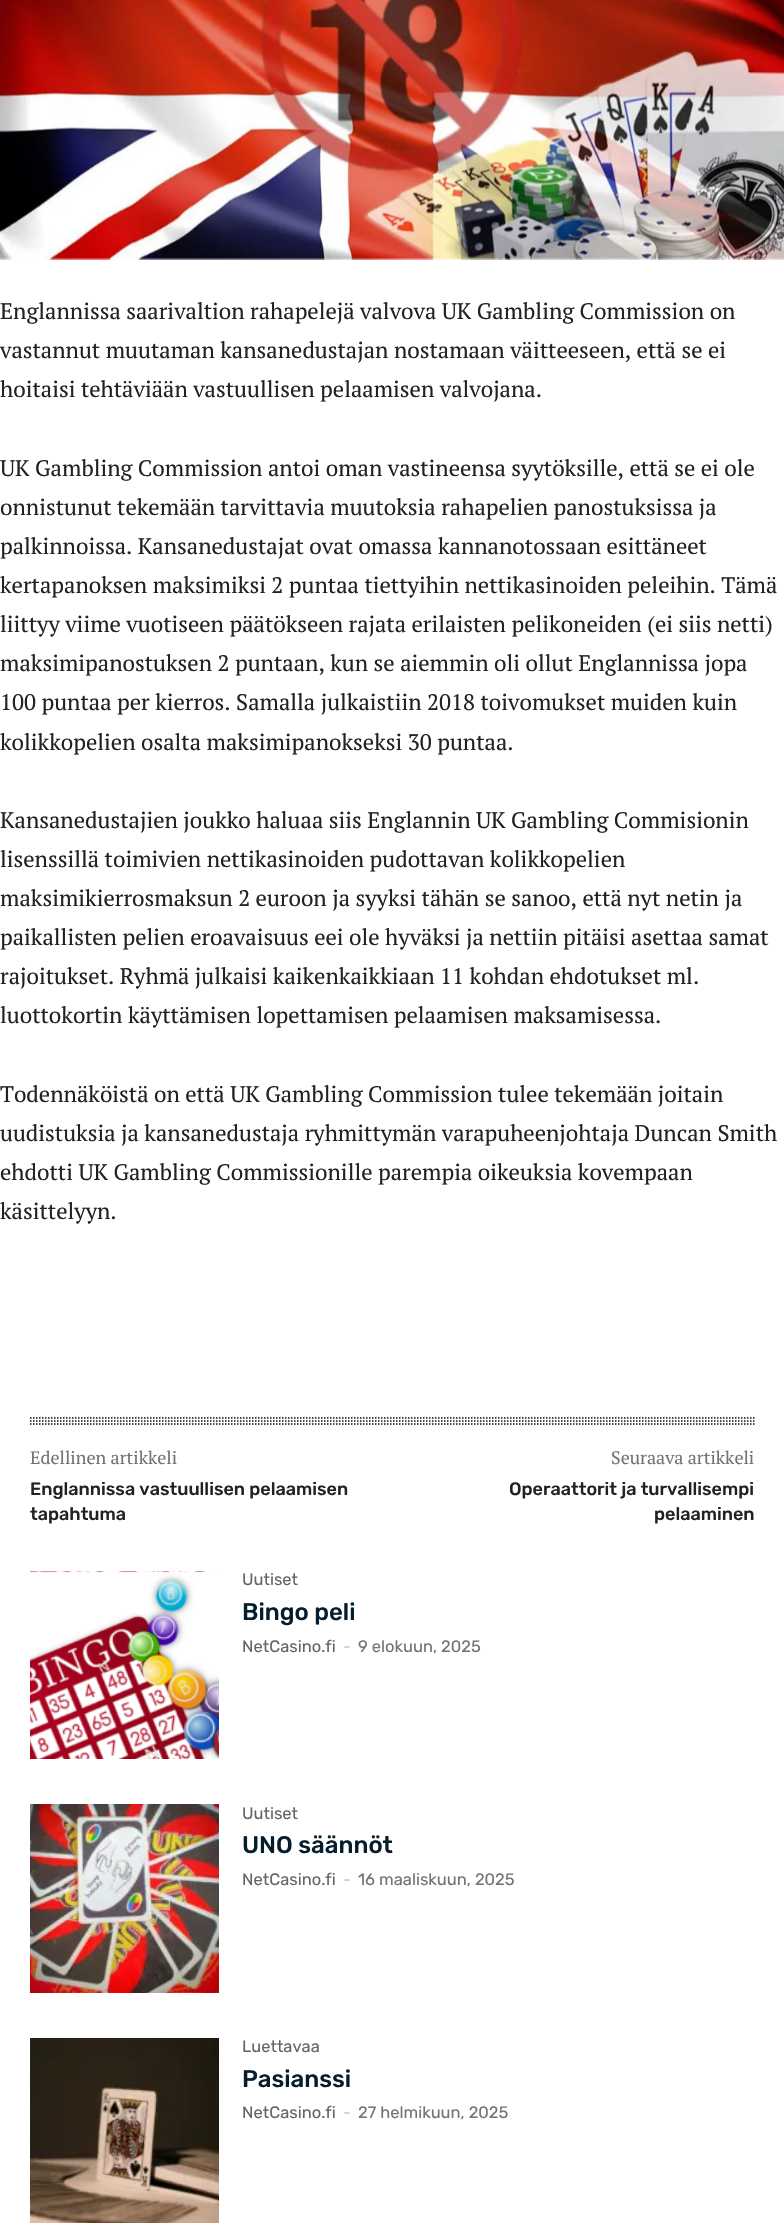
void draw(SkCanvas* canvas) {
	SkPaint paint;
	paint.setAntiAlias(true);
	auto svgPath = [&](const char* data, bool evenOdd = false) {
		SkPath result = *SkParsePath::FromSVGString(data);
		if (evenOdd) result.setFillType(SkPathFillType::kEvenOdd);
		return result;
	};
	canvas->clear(0xffffffff);
	canvas->drawImageRect(SkImages::DeferredFromEncodedData(SkData::MakeFromFileName("img1.png")), SkRect::MakeXYWH(0, 0, 784, 260), SkSamplingOptions());
	SkFont f1(fontMgr->matchFamilyStyle("PT Serif", SkFontStyle::Normal()), 22.5);
	f1.setSubpixel(true);
	paint.setColor(0xff222222);
	canvas->drawString("Englannissa saarivaltion rahapelejä valvova UK Gambling Commission on", 0, 319, f1, paint);
	canvas->drawString("vastannut muutaman kansanedustajan nostamaan väitteeseen, että se ei", 0, 358, f1, paint);
	canvas->drawString("hoitaisi tehtäviään vastuullisen pelaamisen valvojana.", 0, 397, f1, paint);
	canvas->drawString("UK Gambling Commission antoi oman vastineensa syytöksille, että se ei ole", 0, 476, f1, paint);
	canvas->drawString("onnistunut tekemään tarvittavia muutoksia rahapelien panostuksissa ja", 0, 515, f1, paint);
	canvas->drawString("palkinnoissa. Kansanedustajat ovat omassa kannanotossaan esittäneet", 0, 554, f1, paint);
	canvas->drawString("kertapanoksen maksimiksi 2 puntaa tiettyihin nettikasinoiden peleihin. Tämä", 0, 593, f1, paint);
	canvas->drawString("liittyy viime vuotiseen päätökseen rajata erilaisten pelikoneiden (ei siis netti)", 0, 632, f1, paint);
	canvas->drawString("maksimipanostuksen 2 puntaan, kun se aiemmin oli ollut Englannissa jopa", 0, 671, f1, paint);
	canvas->drawString("100 puntaa per kierros. Samalla julkaistiin 2018 toivomukset muiden kuin", 0, 710, f1, paint);
	canvas->drawString("kolikkopelien osalta maksimipanokseksi 30 puntaa.", 0, 750, f1, paint);
	canvas->drawString("Kansanedustajien joukko haluaa siis Englannin UK Gambling Commisionin", 0, 828, f1, paint);
	canvas->drawString("lisenssillä toimivien nettikasinoiden pudottavan kolikkopelien", 0, 867, f1, paint);
	canvas->drawString("maksimikierrosmaksun 2 euroon ja syyksi tähän se sanoo, että nyt netin ja", 0, 906, f1, paint);
	canvas->drawString("paikallisten pelien eroavaisuus eei ole hyväksi ja nettiin pitäisi asettaa samat", 0, 945, f1, paint);
	canvas->drawString("rajoitukset. Ryhmä julkaisi kaikenkaikkiaan 11 kohdan ehdotukset ml.", 0, 984, f1, paint);
	canvas->drawString("luottokortin käyttämisen lopettamisen pelaamisen maksamisessa.", 0, 1023, f1, paint);
	canvas->drawString("Todennäköistä on että UK Gambling Commission tulee tekemään joitain", 0, 1102, f1, paint);
	canvas->drawString("uudistuksia ja kansanedustaja ryhmittymän varapuheenjohtaja Duncan Smith", 0, 1141, f1, paint);
	canvas->drawString("ehdotti UK Gambling Commissionille parempia oikeuksia kovempaan", 0, 1180, f1, paint);
	canvas->drawString("käsittelyyn.", 0, 1219, f1, paint);
	paint.setStroke(true);
	paint.setStrokeWidth(1.5);
	paint.setColor(0xff0a0a0a);
	paint.setPathEffect(SkDashPathEffect::Make({{1.5f, 1.5f}}, 0));
	canvas->drawPath(svgPath("M30 1418H754.5"), paint);
	paint.setPathEffect(nullptr);
	paint.setPathEffect(SkDashPathEffect::Make({{1.5f, 1.5f}}, 0));
	canvas->drawPath(svgPath("M30 1421H754.5"), paint);
	paint.setPathEffect(nullptr);
	paint.setPathEffect(SkDashPathEffect::Make({{1.5f, 1.5f}}, 0));
	canvas->drawPath(svgPath("M30 1424H754.5"), paint);
	paint.setPathEffect(nullptr);
	SkFont f2(fontMgr->matchFamilyStyle("PT Serif", SkFontStyle::Normal()), 18);
	f2.setSubpixel(true);
	paint.setStroke(false);
	paint.setColor(0xff747474);
	canvas->drawString("Edellinen artikkeli", 30, 1464, f2, paint);
	SkFont f3(fontMgr->matchFamilyStyle("Rubik", SkFontStyle(500, SkFontStyle::kNormal_Width, SkFontStyle::kUpright_Slant)), 18);
	f3.setSubpixel(true);
	paint.setColor(0xff222222);
	canvas->drawString("Englannissa vastuullisen pelaamisen", 30, 1495, f3, paint);
	canvas->drawString("tapahtuma", 30, 1520, f3, paint);
	paint.setColor(0xff747474);
	canvas->drawString("Seuraava artikkeli", 611, 1464, f2, paint);
	paint.setColor(0xff222222);
	canvas->drawString("Operaattorit ja turvallisempi", 509, 1495, f3, paint);
	canvas->drawString("pelaaminen", 654, 1520, f3, paint);
	canvas->drawImageRect(SkImages::DeferredFromEncodedData(SkData::MakeFromFileName("img2.png")), SkRect::MakeXYWH(30, 1571, 189, 188), SkSamplingOptions());
	SkFont f4(fontMgr->matchFamilyStyle("Rubik", SkFontStyle::Normal()), 16.5);
	f4.setSubpixel(true);
	paint.setColor(0xff666666);
	canvas->drawString("Uutiset", 242, 1585, f4, paint);
	SkFont f5(fontMgr->matchFamilyStyle("Rubik", SkFontStyle(500, SkFontStyle::kNormal_Width, SkFontStyle::kUpright_Slant)), 24);
	f5.setSubpixel(true);
	paint.setColor(0xff051d2d);
	canvas->drawString("Bingo peli", 242, 1620, f5, paint);
	paint.setColor(0xff666666);
	canvas->drawString("NetCasino.fi", 242, 1652, f4, paint);
	paint.setColor(0xffcccccc);
	canvas->drawString("-", 343, 1652, f4, paint);
	paint.setColor(0xff747474);
	canvas->drawString("9 elokuun, 2025", 358, 1652, f4, paint);
	canvas->drawImageRect(SkImages::DeferredFromEncodedData(SkData::MakeFromFileName("img3.png")), SkRect::MakeXYWH(30, 1804, 189, 189), SkSamplingOptions());
	paint.setColor(0xff666666);
	canvas->drawString("Uutiset", 242, 1819, f4, paint);
	paint.setColor(0xff051d2d);
	canvas->drawString("UNO säännöt", 242, 1853, f5, paint);
	paint.setColor(0xff666666);
	canvas->drawString("NetCasino.fi", 242, 1885, f4, paint);
	paint.setColor(0xffcccccc);
	canvas->drawString("-", 343, 1885, f4, paint);
	paint.setColor(0xff747474);
	canvas->drawString("16 maaliskuun, 2025", 358, 1885, f4, paint);
	canvas->drawImageRect(SkImages::DeferredFromEncodedData(SkData::MakeFromFileName("img4.png")), SkRect::MakeXYWH(30, 2038, 189, 185), SkSamplingOptions());
	paint.setColor(0xff666666);
	canvas->drawString("Luettavaa", 242, 2052, f4, paint);
	paint.setColor(0xff051d2d);
	canvas->drawString("Pasianssi", 242, 2087, f5, paint);
	paint.setColor(0xff666666);
	canvas->drawString("NetCasino.fi", 242, 2118, f4, paint);
	paint.setColor(0xffcccccc);
	canvas->drawString("-", 343, 2118, f4, paint);
	paint.setColor(0xff747474);
	canvas->drawString("27 helmikuun, 2025", 358, 2118, f4, paint);
}
